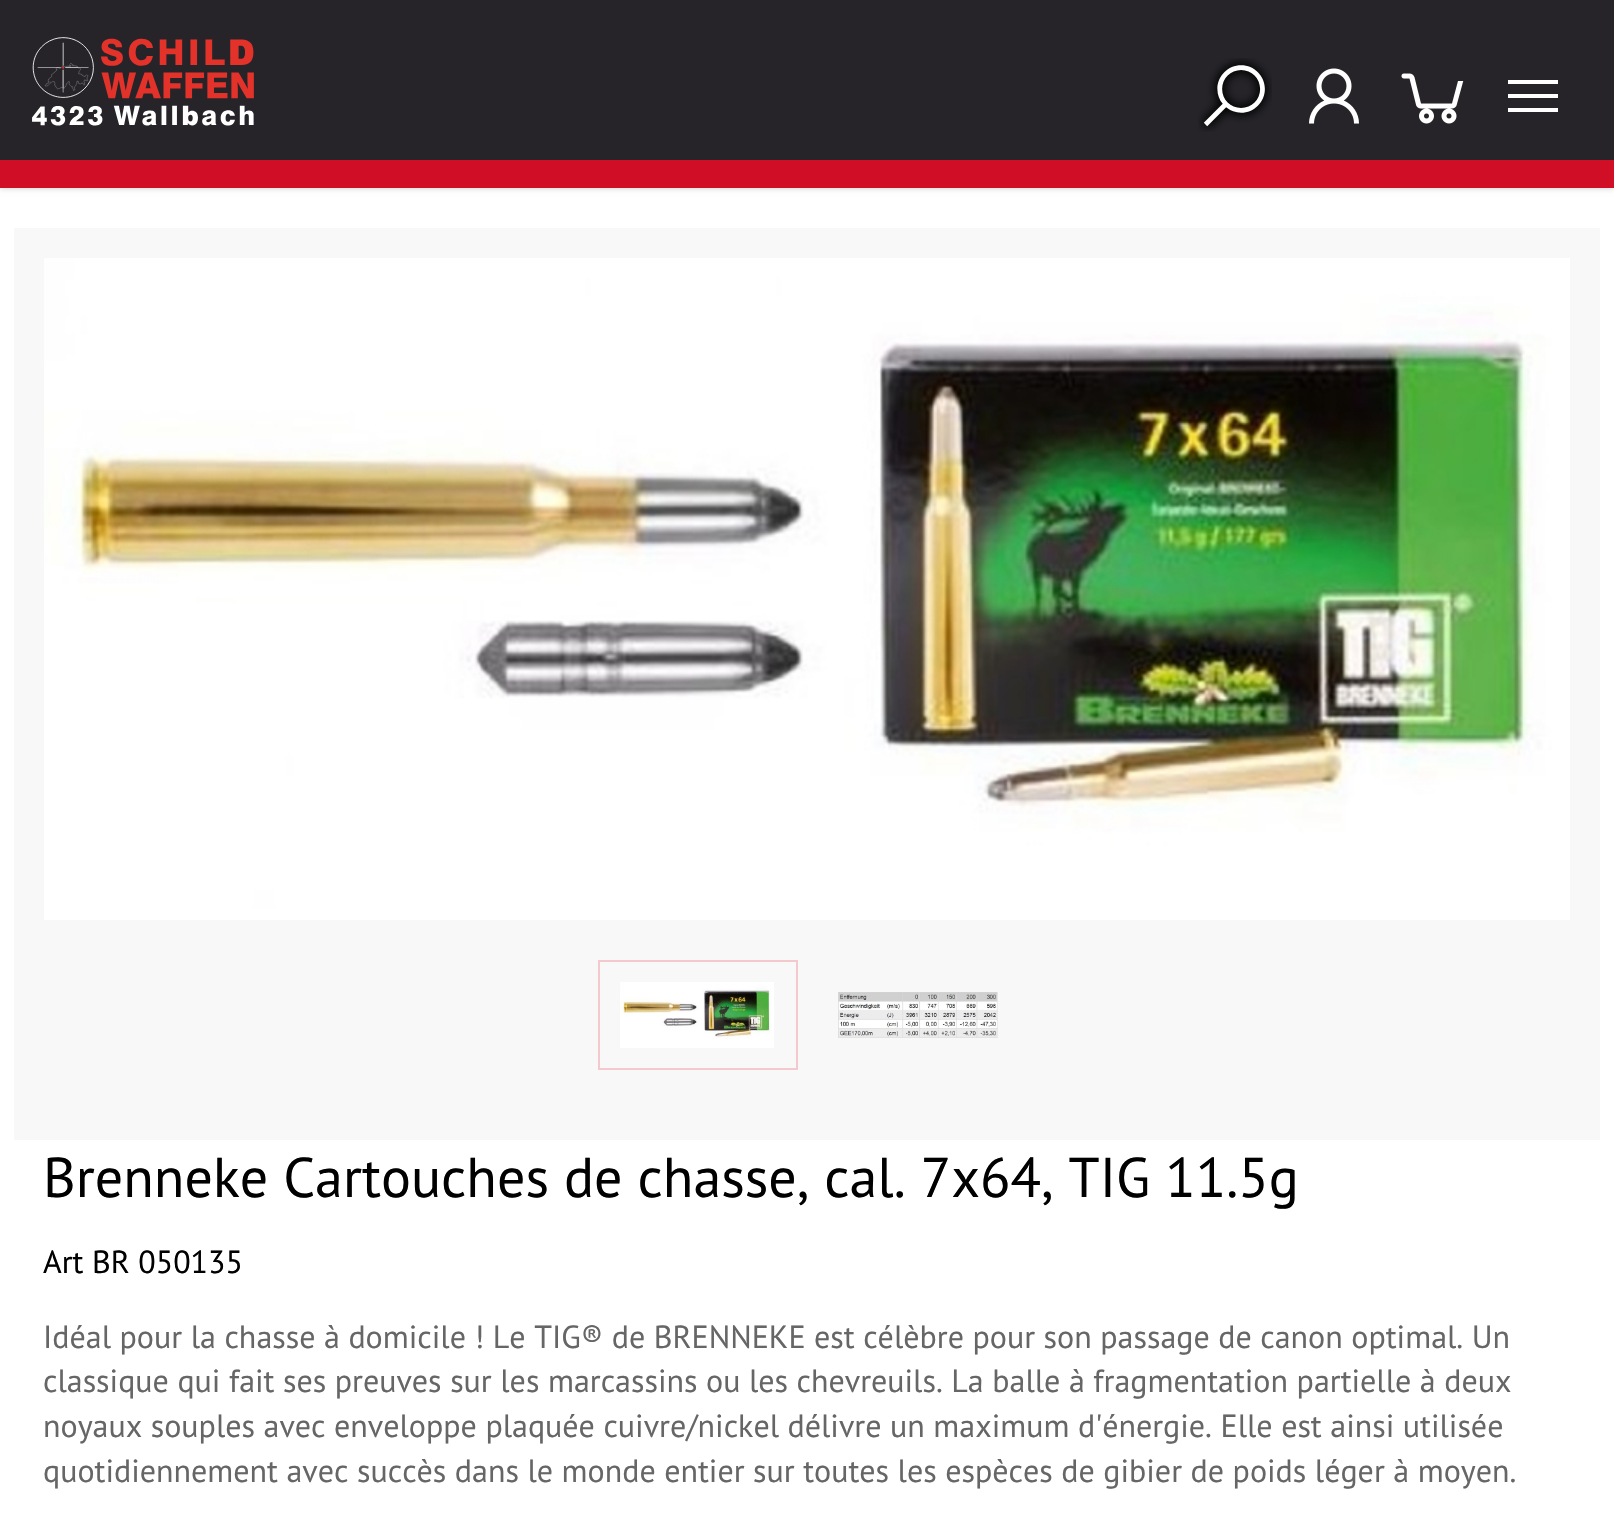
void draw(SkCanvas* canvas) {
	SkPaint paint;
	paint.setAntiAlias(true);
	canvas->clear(0xffffffff);
	paint.setColor(0xffcccccc);
	paint.setMaskFilter(SkMaskFilter::MakeBlur(kNormal_SkBlurStyle, 3));
	canvas->drawRect(SkRect::MakeXYWH(0, 0, 1614, 188), paint);
	paint.setMaskFilter(nullptr);
	paint.setColor(0xff262429);
	canvas->drawRect(SkRect::MakeXYWH(0, 0, 1614, 160), paint);
	paint.setColor(0xffd00f26);
	canvas->drawRect(SkRect::MakeXYWH(0, 160, 1614, 28), paint);
	canvas->drawImageRect(SkImages::DeferredFromEncodedData(SkData::MakeFromFileName("img1.png")), SkRect::MakeXYWH(32, 37, 222, 89), SkSamplingOptions());
	canvas->drawImageRect(SkImages::DeferredFromEncodedData(SkData::MakeFromFileName("img2.png")), SkRect::MakeXYWH(1198, 58, 74, 74), SkSamplingOptions());
	canvas->drawImageRect(SkImages::DeferredFromEncodedData(SkData::MakeFromFileName("img3.png")), SkRect::MakeXYWH(1309, 68, 50, 56), SkSamplingOptions());
	canvas->drawImageRect(SkImages::DeferredFromEncodedData(SkData::MakeFromFileName("img4.png")), SkRect::MakeXYWH(1401, 73, 63, 51), SkSamplingOptions());
	paint.setColor(0xffffffff);
	canvas->drawRect(SkRect::MakeXYWH(1508, 94, 50, 4), paint);
	canvas->drawRect(SkRect::MakeXYWH(1508, 80, 50, 4), paint);
	canvas->drawRect(SkRect::MakeXYWH(1508, 108, 50, 4), paint);
	paint.setColor(0xfff8f8f8);
	canvas->drawRect(SkRect::MakeXYWH(14, 228, 1586, 912), paint);
	canvas->drawImageRect(SkImages::DeferredFromEncodedData(SkData::MakeFromFileName("img5.png")), SkRect::MakeXYWH(44, 258, 1526, 662), SkSamplingOptions());
	paint.setStroke(true);
	paint.setStrokeWidth(2);
	paint.setColor(0xfff4c9ce);
	canvas->drawRect(SkRect::MakeXYWH(599, 961, 198, 108), paint);
	canvas->drawImageRect(SkImages::DeferredFromEncodedData(SkData::MakeFromFileName("img6.png")), SkRect::MakeXYWH(620, 982, 154, 66), SkSamplingOptions());
	canvas->drawImageRect(SkImages::DeferredFromEncodedData(SkData::MakeFromFileName("img7.png")), SkRect::MakeXYWH(838, 992, 160, 46), SkSamplingOptions());
	SkFont f1(fontMgr->matchFamilyStyle("PT Sans", SkFontStyle::Normal()), 56);
	f1.setSubpixel(true);
	paint.setStroke(false);
	paint.setColor(0xff000000);
	canvas->drawString("Brenneke Cartouches de chasse, cal. 7x64, TIG 11.5g", 43, 1197, f1, paint);
	SkFont f2(fontMgr->matchFamilyStyle("PT Sans", SkFontStyle::Normal()), 32);
	f2.setSubpixel(true);
	canvas->drawString("Art BR 050135", 43, 1273, f2, paint);
	paint.setColor(0xff666666);
	canvas->drawString("Idéal pour la chasse à domicile ! Le TIG® de BRENNEKE est célèbre pour son passage de canon optimal. Un", 43, 1348, f2, paint);
	canvas->drawString("classique qui fait ses preuves sur les marcassins ou les chevreuils. La balle à fragmentation partielle à deux", 43, 1392, f2, paint);
	canvas->drawString("noyaux souples avec enveloppe plaquée cuivre/nickel délivre un maximum d'énergie. Elle est ainsi utilisée", 43, 1437, f2, paint);
	canvas->drawString("quotidiennement avec succès dans le monde entier sur toutes les espèces de gibier de poids léger à moyen.", 43, 1482, f2, paint);
}
